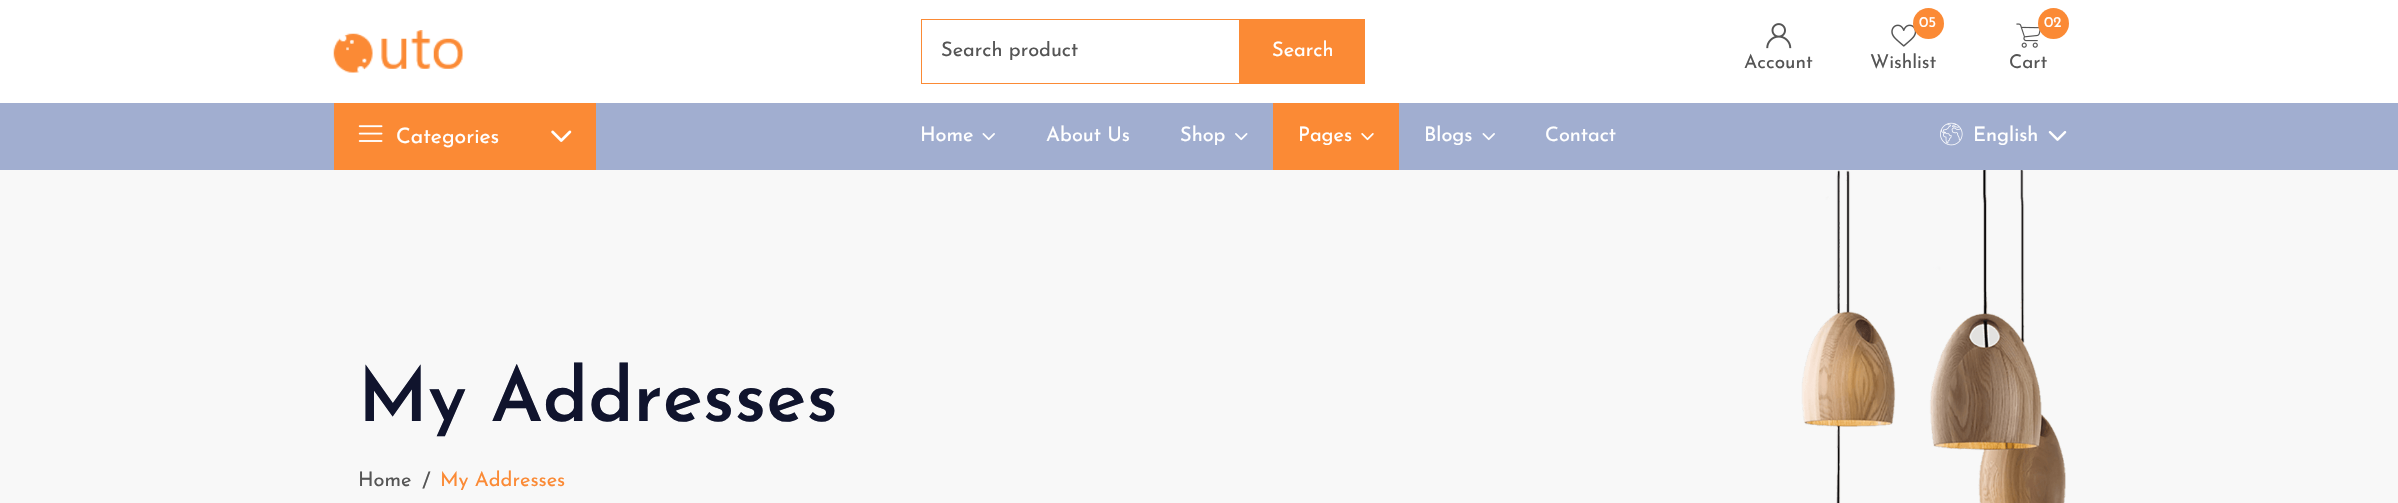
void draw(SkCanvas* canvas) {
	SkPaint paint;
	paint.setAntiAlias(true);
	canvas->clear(0xffffffff);
	canvas->drawImageRect(SkImages::DeferredFromEncodedData(SkData::MakeFromFileName("img1.png")), SkRect::MakeXYWH(333, 30, 130, 43), SkSamplingOptions());
	paint.setStroke(true);
	paint.setStrokeWidth(1);
	paint.setColor(0xfffb8a35);
	canvas->drawRect(SkRect::MakeXYWH(921.5, 19.5, 318, 64), paint);
	canvas->save();
	canvas->clipRect(SkRect::MakeXYWH(941, 41, 279, 20));
	SkFont f1(fontMgr->matchFamilyStyle("Josefin Sans", SkFontStyle::Normal()), 20);
	f1.setSubpixel(true);
	paint.setStroke(false);
	paint.setColor(0xff555555);
	canvas->drawString("Search product", 941, 56, f1, paint);
	canvas->restore();
	paint.setColor(0xfffb8a35);
	canvas->drawRect(SkRect::MakeXYWH(1240, 19, 125, 65), paint);
	paint.setColor(0xffffffff);
	canvas->drawString("Search", 1272, 56, f1, paint);
	canvas->drawImageRect(SkImages::DeferredFromEncodedData(SkData::MakeFromFileName("img2.png")), SkRect::MakeXYWH(1766, 23, 26, 26), SkSamplingOptions());
	SkFont f2(fontMgr->matchFamilyStyle("Josefin Sans", SkFontStyle::Normal()), 19);
	f2.setSubpixel(true);
	paint.setColor(0xff555555);
	canvas->drawString("Account", 1744, 68, f2, paint);
	canvas->drawImageRect(SkImages::DeferredFromEncodedData(SkData::MakeFromFileName("img3.png")), SkRect::MakeXYWH(1891, 24, 26, 23), SkSamplingOptions());
	paint.setColor(0xfffb8a35);
	canvas->drawCircle(1928.5, 23.5, 15.5, paint);
	SkFont f3(fontMgr->matchFamilyStyle("Josefin Sans", SkFontStyle::Normal()), 15);
	f3.setSubpixel(true);
	paint.setColor(0xffffffff);
	canvas->drawString("05", 1919, 27, f3, paint);
	paint.setColor(0xff555555);
	canvas->drawString("Wishlist", 1870, 68, f2, paint);
	canvas->drawImageRect(SkImages::DeferredFromEncodedData(SkData::MakeFromFileName("img4.png")), SkRect::MakeXYWH(2016, 23, 25, 25), SkSamplingOptions());
	paint.setColor(0xfffb8a35);
	canvas->drawCircle(2053.5, 23.5, 15.5, paint);
	paint.setColor(0xffffffff);
	canvas->drawString("02", 2044, 27, f3, paint);
	paint.setColor(0xff555555);
	canvas->drawString("Cart", 2009, 68, f2, paint);
	paint.setColor(0xffa1aed0);
	canvas->drawRect(SkRect::MakeXYWH(0, 103, 2398, 67), paint);
	paint.setColor(0xfffb8a35);
	canvas->drawRect(SkRect::MakeXYWH(334, 103, 262, 67), paint);
	canvas->drawImageRect(SkImages::DeferredFromEncodedData(SkData::MakeFromFileName("img5.png")), SkRect::MakeXYWH(358, 125, 25, 17), SkSamplingOptions());
	SkFont f4(fontMgr->matchFamilyStyle("Josefin Sans", SkFontStyle::Normal()), 21.25);
	f4.setSubpixel(true);
	paint.setColor(0xffffffff);
	canvas->drawString("Categories", 396, 143, f4, paint);
	canvas->drawImageRect(SkImages::DeferredFromEncodedData(SkData::MakeFromFileName("img6.png")), SkRect::MakeXYWH(551, 130, 21, 12), SkSamplingOptions());
	canvas->drawString("Home", 920, 141, f1, paint);
	canvas->drawImageRect(SkImages::DeferredFromEncodedData(SkData::MakeFromFileName("img7.png")), SkRect::MakeXYWH(982, 133, 13, 8), SkSamplingOptions());
	canvas->drawString("About Us", 1046, 141, f1, paint);
	canvas->drawString("Shop", 1180, 141, f1, paint);
	canvas->drawImageRect(SkImages::DeferredFromEncodedData(SkData::MakeFromFileName("img8.png")), SkRect::MakeXYWH(1235, 133, 13, 8), SkSamplingOptions());
	paint.setColor(0xfffb8a35);
	canvas->drawRect(SkRect::MakeXYWH(1273, 103, 126, 67), paint);
	paint.setColor(0xffffffff);
	canvas->drawString("Pages", 1298, 141, f1, paint);
	canvas->drawImageRect(SkImages::DeferredFromEncodedData(SkData::MakeFromFileName("img9.png")), SkRect::MakeXYWH(1361, 133, 13, 8), SkSamplingOptions());
	canvas->drawString("Blogs", 1424, 141, f1, paint);
	canvas->drawImageRect(SkImages::DeferredFromEncodedData(SkData::MakeFromFileName("img7.png")), SkRect::MakeXYWH(1482, 133, 13, 8), SkSamplingOptions());
	canvas->drawString("Contact", 1545, 141, f1, paint);
	canvas->drawImageRect(SkImages::DeferredFromEncodedData(SkData::MakeFromFileName("img10.png")), SkRect::MakeXYWH(1940, 122, 23, 24), SkSamplingOptions());
	canvas->drawString("English", 1973, 141, f1, paint);
	canvas->drawImageRect(SkImages::DeferredFromEncodedData(SkData::MakeFromFileName("img11.png")), SkRect::MakeXYWH(2048, 131, 19, 10), SkSamplingOptions());
	paint.setColor(0xfff8f8f8);
	canvas->drawRect(SkRect::MakeXYWH(0, 170, 2398, 333), paint);
	SkFont f5(fontMgr->matchFamilyStyle("Josefin Sans", SkFontStyle(600, SkFontStyle::kNormal_Width, SkFontStyle::kUpright_Slant)), 75);
	f5.setSubpixel(true);
	paint.setColor(0xff10142d);
	canvas->drawString("My Addresses", 358, 421, f5, paint);
	paint.setColor(0xff555555);
	canvas->drawString("Home", 358, 486, f1, paint);
	SkFont f6(fontMgr->matchFamilyStyle("Josefin Sans", SkFontStyle::Normal()), 22);
	f6.setSubpixel(true);
	canvas->drawString("/", 422, 488, f6, paint);
	paint.setColor(0xfffb8a35);
	canvas->drawString("My Addresses", 440, 486, f1, paint);
	canvas->drawImageRect(SkImages::DeferredFromEncodedData(SkData::MakeFromFileName("img12.png")), SkRect::MakeXYWH(1801, 170, 265, 333), SkSamplingOptions());
}
